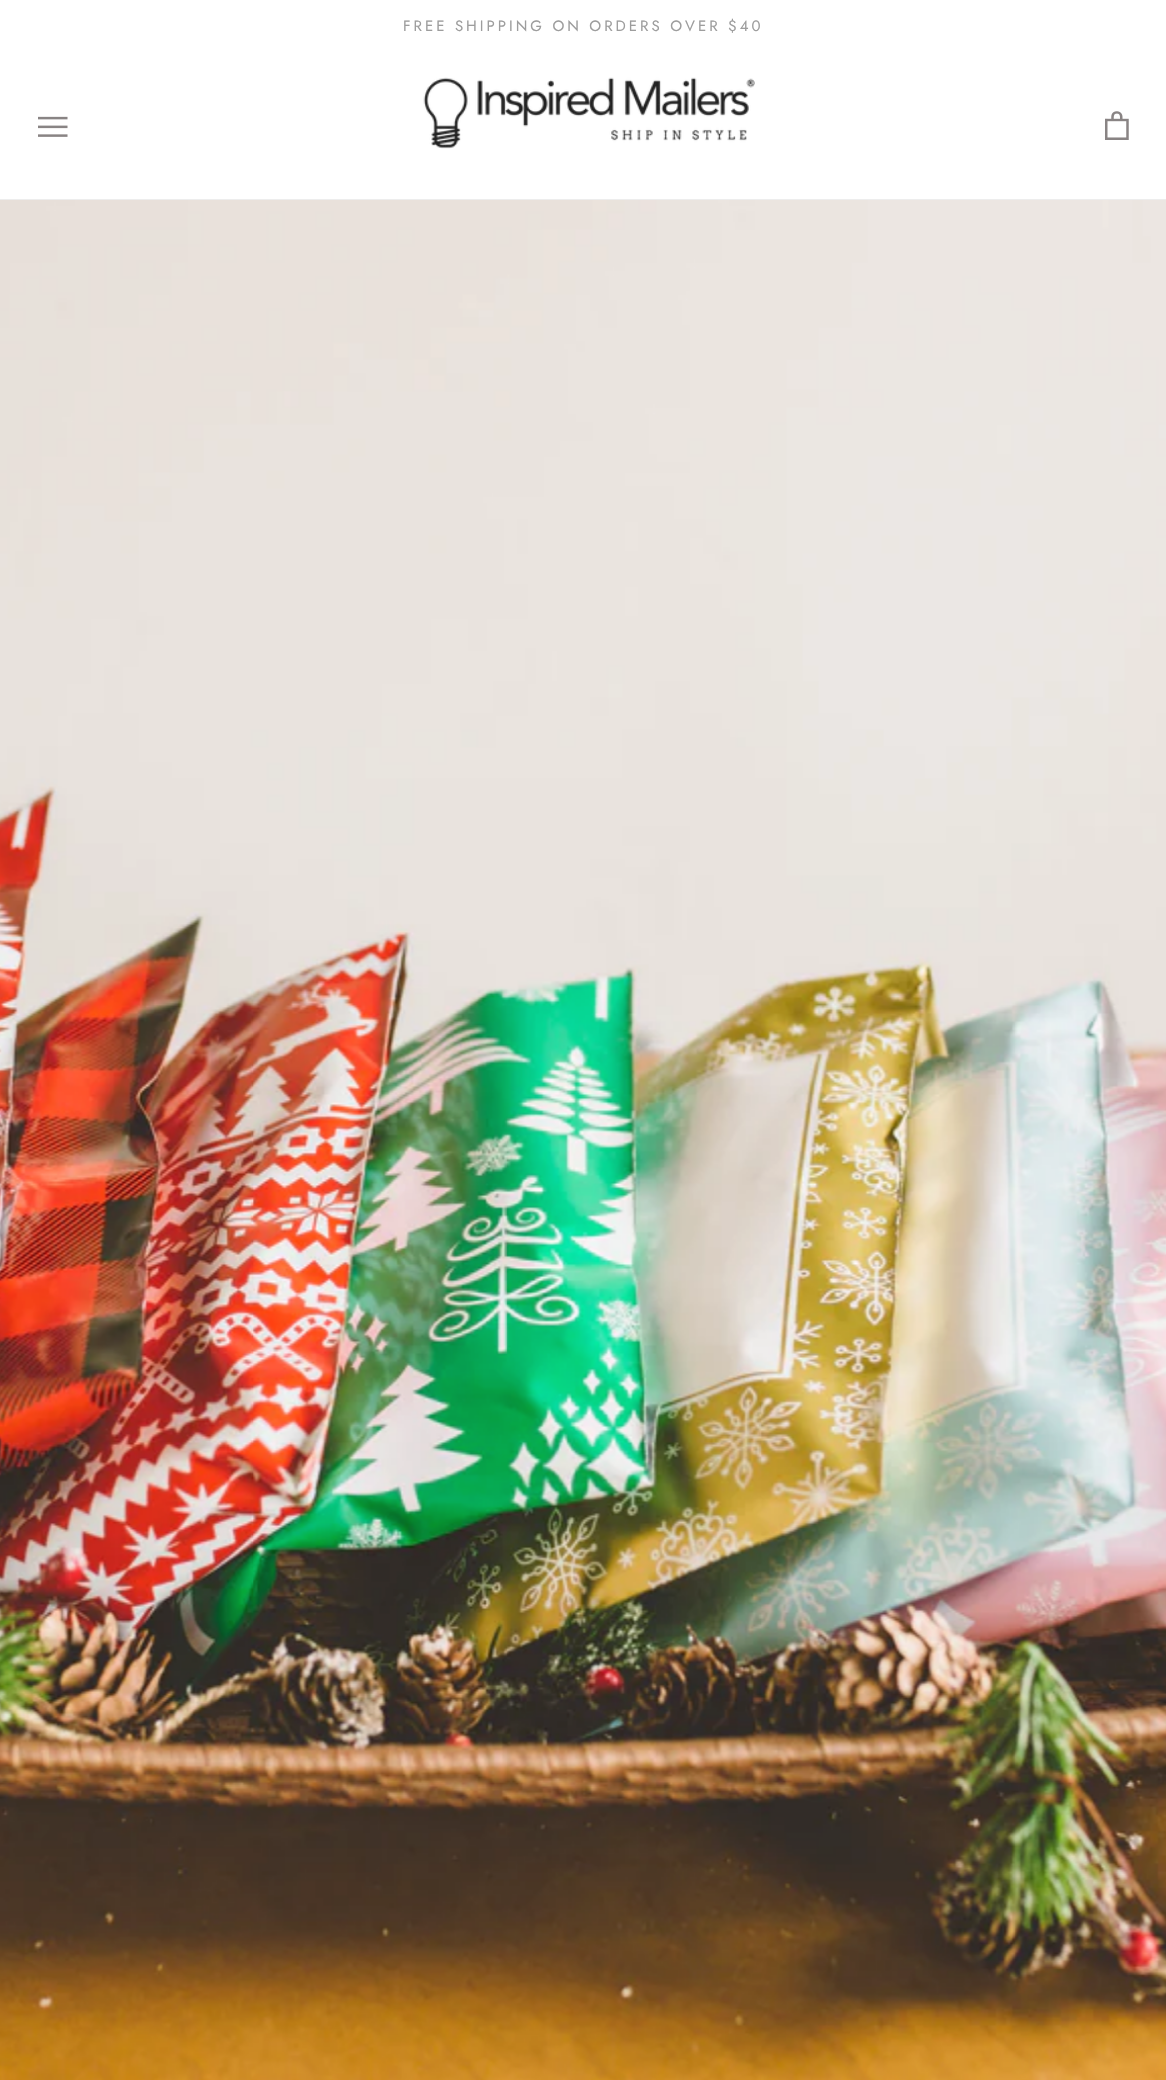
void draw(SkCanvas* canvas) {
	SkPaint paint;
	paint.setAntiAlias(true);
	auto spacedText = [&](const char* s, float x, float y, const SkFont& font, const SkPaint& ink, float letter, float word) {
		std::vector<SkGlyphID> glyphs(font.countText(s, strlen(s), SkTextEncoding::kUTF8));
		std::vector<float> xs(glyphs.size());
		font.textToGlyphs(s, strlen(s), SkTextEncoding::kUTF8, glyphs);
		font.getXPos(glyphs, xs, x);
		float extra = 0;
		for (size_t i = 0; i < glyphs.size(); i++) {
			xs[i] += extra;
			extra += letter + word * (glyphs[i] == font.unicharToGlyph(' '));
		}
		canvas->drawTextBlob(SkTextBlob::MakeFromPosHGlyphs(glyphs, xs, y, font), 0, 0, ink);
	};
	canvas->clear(0xffffffff);
	SkFont f1(fontMgr->matchFamilyStyle("Jost", SkFontStyle::Normal()), 15);
	f1.setSubpixel(true);
	paint.setColor(0xff9d9d9d);
	spacedText("FREE SHIPPING ON ORDERS OVER $40", 403, 31, f1, paint, 3, 0);
	paint.setColor(0xffededed);
	canvas->drawRect(SkRect::MakeXYWH(0, 199, 1166, 1), paint);
	canvas->drawImageRect(SkImages::DeferredFromEncodedData(SkData::MakeFromFileName("img1.png")), SkRect::MakeXYWH(38, 116, 30, 21), SkSamplingOptions());
	canvas->drawImageRect(SkImages::DeferredFromEncodedData(SkData::MakeFromFileName("img2.png")), SkRect::MakeXYWH(423, 77, 332, 72), SkSamplingOptions());
	canvas->drawImageRect(SkImages::DeferredFromEncodedData(SkData::MakeFromFileName("img3.png")), SkRect::MakeXYWH(1105, 111, 24, 29), SkSamplingOptions());
	canvas->drawImageRect(SkImages::DeferredFromEncodedData(SkData::MakeFromFileName("img4.png")), SkRect::MakeXYWH(0, 200, 1166, 1880), SkSamplingOptions());
}
